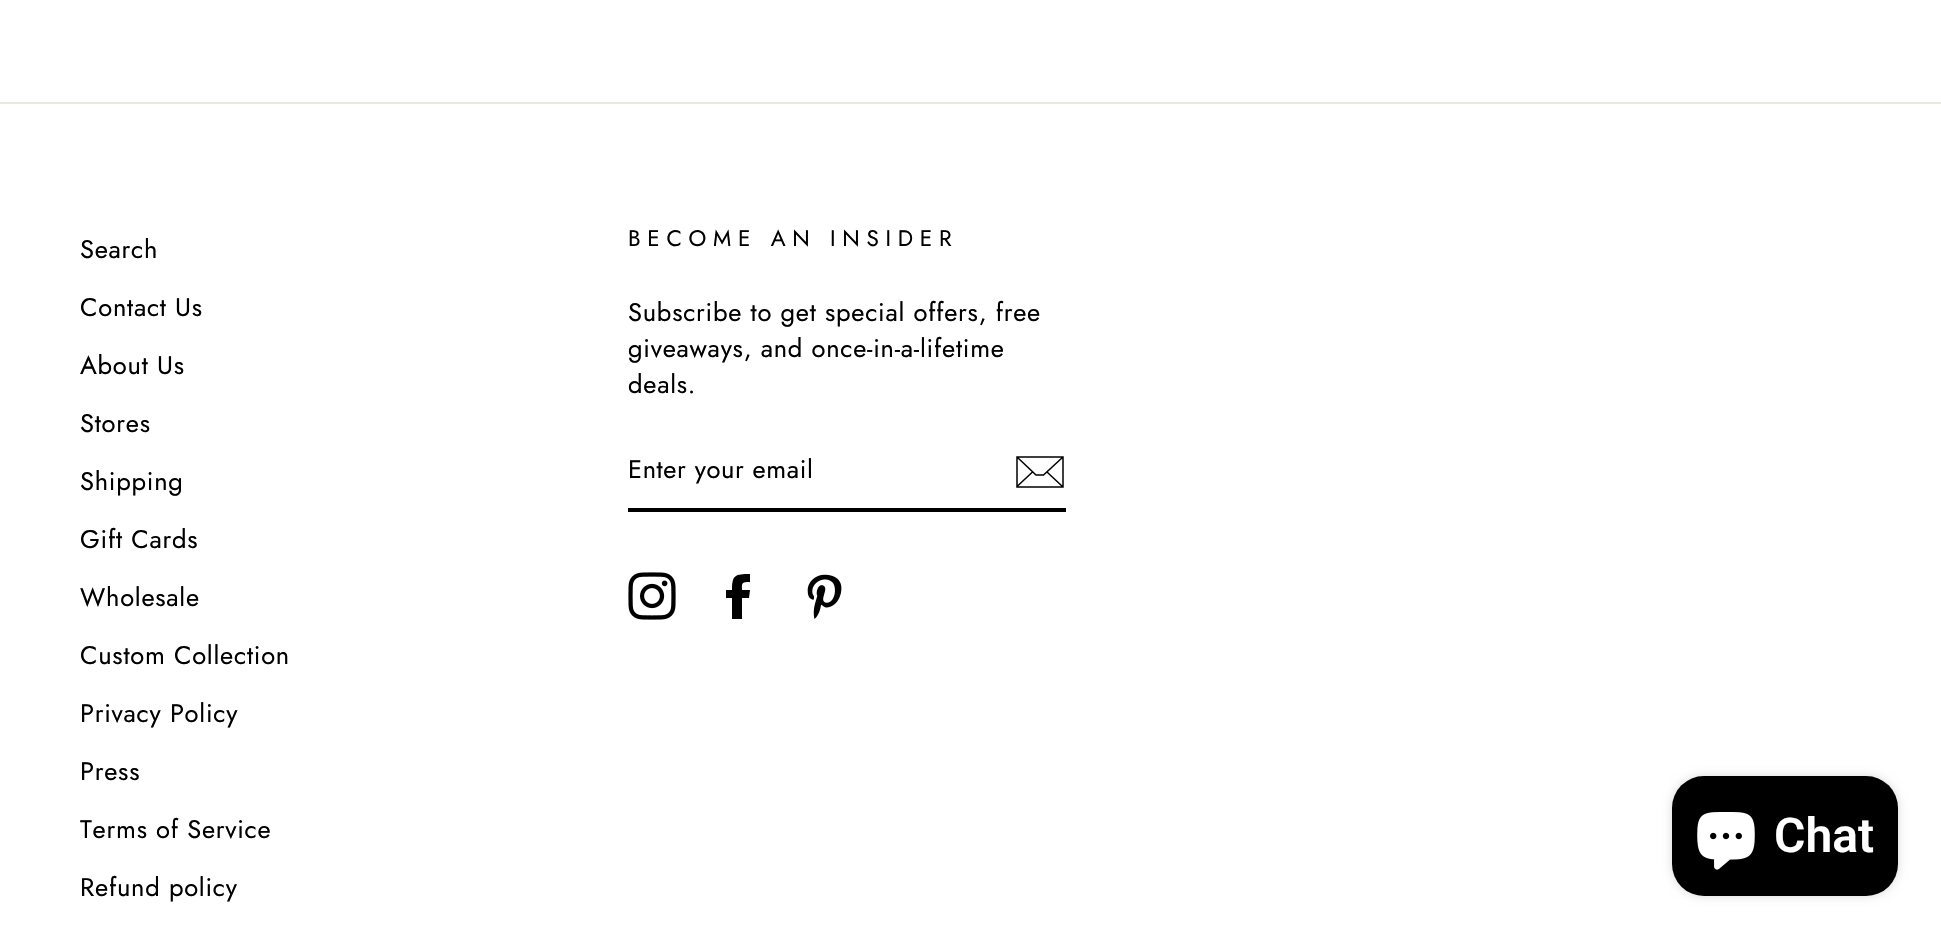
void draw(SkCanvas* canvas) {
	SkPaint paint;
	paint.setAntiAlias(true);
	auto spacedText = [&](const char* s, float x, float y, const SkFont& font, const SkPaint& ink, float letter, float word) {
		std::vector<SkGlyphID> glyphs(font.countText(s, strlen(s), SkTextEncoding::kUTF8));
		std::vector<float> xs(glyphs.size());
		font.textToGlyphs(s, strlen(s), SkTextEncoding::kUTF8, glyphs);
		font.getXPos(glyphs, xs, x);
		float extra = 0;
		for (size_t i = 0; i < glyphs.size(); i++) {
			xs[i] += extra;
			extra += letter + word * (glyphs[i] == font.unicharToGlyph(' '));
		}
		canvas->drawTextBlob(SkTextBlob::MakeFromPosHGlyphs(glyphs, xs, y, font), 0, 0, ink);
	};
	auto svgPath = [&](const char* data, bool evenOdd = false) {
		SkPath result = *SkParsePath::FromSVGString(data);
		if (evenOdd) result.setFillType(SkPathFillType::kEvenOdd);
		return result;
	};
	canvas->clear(0xffffffff);
	paint.setColor(0xffe8e8e1);
	canvas->drawRect(SkRect::MakeXYWH(0, 102, 1941, 2), paint);
	SkFont f1(fontMgr->matchFamilyStyle("Jost", SkFontStyle::Normal()), 25.5);
	f1.setSubpixel(true);
	paint.setColor(0xff000000);
	spacedText("Search", 80, 258, f1, paint, 0.75, 0);
	spacedText("Contact Us", 80, 316, f1, paint, 0.75, 0);
	spacedText("About Us", 80, 374, f1, paint, 0.75, 0);
	spacedText("Stores", 80, 432, f1, paint, 0.75, 0);
	spacedText("Shipping", 80, 490, f1, paint, 0.75, 0);
	spacedText("Gift Cards", 80, 548, f1, paint, 0.75, 0);
	spacedText("Wholesale", 80, 606, f1, paint, 0.75, 0);
	spacedText("Custom Collection", 80, 664, f1, paint, 0.75, 0);
	spacedText("Privacy Policy", 80, 722, f1, paint, 0.75, 0);
	spacedText("Press", 80, 780, f1, paint, 0.75, 0);
	spacedText("Terms of Service", 80, 838, f1, paint, 0.75, 0);
	spacedText("Refund policy", 80, 896, f1, paint, 0.75, 0);
	SkFont f2(fontMgr->matchFamilyStyle("Jost", SkFontStyle::Normal()), 22.5);
	f2.setSubpixel(true);
	spacedText("BECOME AN INSIDER", 628, 246, f2, paint, 6.75, 0);
	spacedText("Subscribe to get special offers, free", 628, 321, f1, paint, 0.75, 0);
	spacedText("giveaways, and once-in-a-lifetime", 628, 357, f1, paint, 0.75, 0);
	spacedText("deals.", 628, 393, f1, paint, 0.75, 0);
	canvas->drawRect(SkRect::MakeXYWH(628, 508, 438, 4), paint);
	spacedText("Enter your email", 628, 478, f1, paint, 0.6, 0);
	paint.setStroke(true);
	paint.setStrokeWidth(1.5);
	canvas->drawPath(svgPath("M1063 487H1017V457H1063ZM1017 457L1036 475H1043.5L1063 457M1032.5 472L1017 486.5M1063 487L1047 472"), paint);
	canvas->drawImageRect(SkImages::DeferredFromEncodedData(SkData::MakeFromFileName("img1.png")), SkRect::MakeXYWH(628, 572, 48, 48), SkSamplingOptions());
	paint.setStroke(false);
	canvas->drawPath(svgPath("M742 619V598H749L750 590H742C742 583 741 582 750 582V574C735 574 732 575 732 590H726V598H732V619Z"), paint);
	canvas->drawImageRect(SkImages::DeferredFromEncodedData(SkData::MakeFromFileName("img2.png")), SkRect::MakeXYWH(807, 574, 35, 45), SkSamplingOptions());
	paint.setColor(0x26000000);
	paint.setMaskFilter(SkMaskFilter::MakeBlur(kNormal_SkBlurStyle, 5));
	canvas->drawRoundRect(SkRect::MakeXYWH(1672, 776, 226, 120), 32, 32, paint);
	paint.setMaskFilter(nullptr);
	paint.setColor(0xff000000);
	canvas->drawRoundRect(SkRect::MakeXYWH(1672, 776, 226, 120), 32, 32, paint);
	canvas->drawImageRect(SkImages::DeferredFromEncodedData(SkData::MakeFromFileName("img3.png")), SkRect::MakeXYWH(1697, 812, 58, 58), SkSamplingOptions());
	SkFont f3(fontMgr->matchFamilyStyle("Roboto", SkFontStyle(600, SkFontStyle::kNormal_Width, SkFontStyle::kUpright_Slant)), 48);
	f3.setSubpixel(true);
	paint.setColor(0xffffffff);
	canvas->drawString("Chat", 1774, 852, f3, paint);
}
